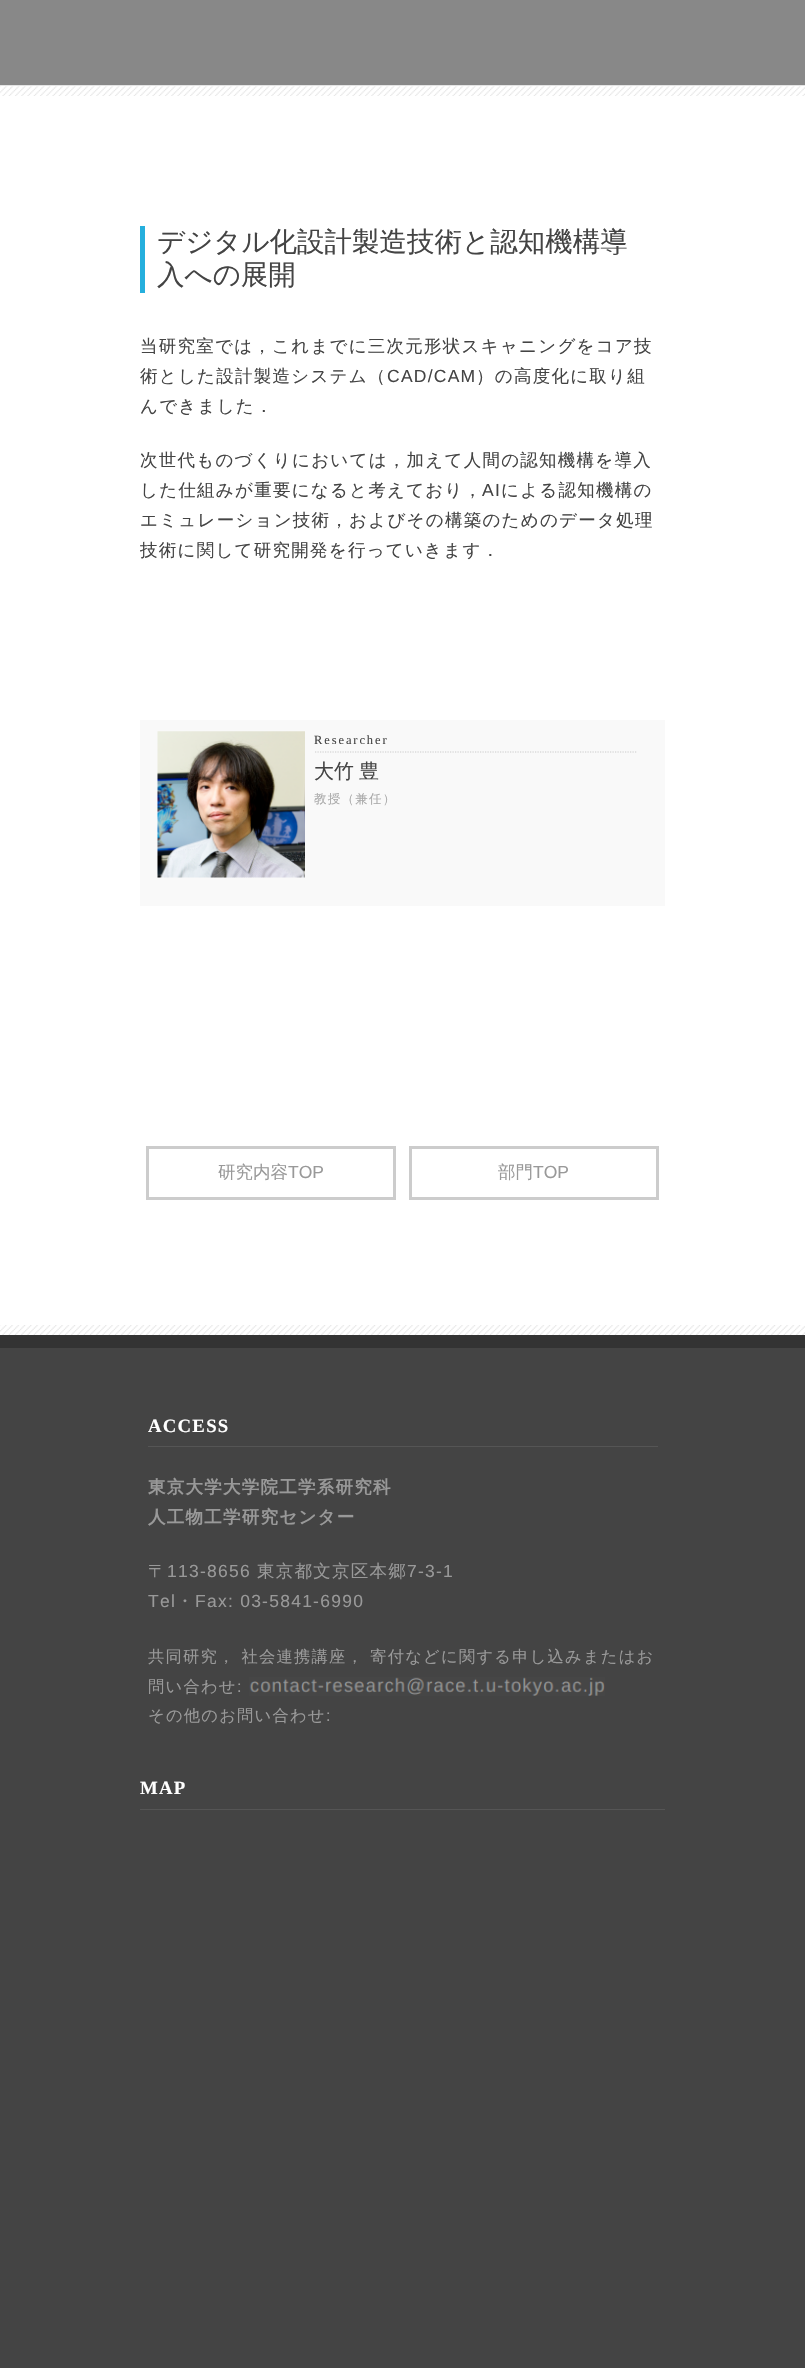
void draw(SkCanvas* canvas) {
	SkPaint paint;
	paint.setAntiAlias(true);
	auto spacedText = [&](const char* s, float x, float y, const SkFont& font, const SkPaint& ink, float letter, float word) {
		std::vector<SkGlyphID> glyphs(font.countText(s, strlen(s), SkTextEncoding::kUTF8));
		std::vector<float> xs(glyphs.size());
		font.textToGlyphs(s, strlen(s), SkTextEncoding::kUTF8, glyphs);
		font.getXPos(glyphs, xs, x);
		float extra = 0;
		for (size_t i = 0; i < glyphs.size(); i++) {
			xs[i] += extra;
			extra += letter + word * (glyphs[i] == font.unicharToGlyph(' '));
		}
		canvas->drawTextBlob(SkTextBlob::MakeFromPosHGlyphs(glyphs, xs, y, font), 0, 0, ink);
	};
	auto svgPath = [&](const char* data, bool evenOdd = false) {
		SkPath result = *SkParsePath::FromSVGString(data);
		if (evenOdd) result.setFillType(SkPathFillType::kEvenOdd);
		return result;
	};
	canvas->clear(0xffffffff);
	paint.setColor(0xff888888);
	canvas->drawRect(SkRect::MakeXYWH(0, 0, 805, 85), paint);
	paint.setColor(0xffe4e4e4);
	canvas->drawRect(SkRect::MakeXYWH(0, 85, 805, 1), paint);
	canvas->drawImageRect(SkImages::DeferredFromEncodedData(SkData::MakeFromFileName("img1.png")), SkRect::MakeXYWH(0, 86, 805, 10), SkSamplingOptions());
	paint.setColor(0xff25afdd);
	canvas->drawRect(SkRect::MakeXYWH(140, 226, 5, 67), paint);
	SkFont f1(fontMgr->matchFamilyStyle("WenQuanYi Zen Hei", SkFontStyle(500, SkFontStyle::kNormal_Width, SkFontStyle::kUpright_Slant)), 27.5);
	f1.setSubpixel(true);
	paint.setColor(0xff444444);
	canvas->drawString("デジタル化設計製造技術と認知機構導", 157, 251, f1, paint);
	canvas->drawString("入への展開", 157, 284, f1, paint);
	SkFont f2(fontMgr->matchFamilyStyle("WenQuanYi Zen Hei", SkFontStyle(500, SkFontStyle::kNormal_Width, SkFontStyle::kUpright_Slant)), 17.5);
	f2.setSubpixel(true);
	spacedText("当研究室では，これまでに三次元形状スキャニングをコア技", 140, 352, f2, paint, 1.25, 0);
	spacedText("術とした設計製造システム（", 140, 382, f2, paint, 1.25, 0);
	SkFont f3(fontMgr->matchFamilyStyle("Liberation Sans", SkFontStyle::Normal()), 17.5);
	f3.setSubpixel(true);
	spacedText("CAD/CAM", 387, 382, f3, paint, 1.25, 0);
	spacedText("）の高度化に取り組", 476, 382, f2, paint, 1.25, 0);
	spacedText("んできました．", 140, 412, f2, paint, 1.25, 0);
	spacedText("次世代ものづくりにおいては，加えて人間の認知機構を導入", 140, 466, f2, paint, 1.25, 0);
	spacedText("した仕組みが重要になると考えており，", 140, 496, f2, paint, 1.25, 0);
	spacedText("AI", 482, 496, f3, paint, 1.25, 0);
	spacedText("による認知機構の", 501, 496, f2, paint, 1.25, 0);
	spacedText("エミュレーション技術，およびその構築のためのデータ処理", 140, 526, f2, paint, 1.25, 0);
	spacedText("技術に関して研究開発を行っていきます．", 140, 556, f2, paint, 1.25, 0);
	paint.setColor(0xfff9f9f9);
	canvas->drawRect(SkRect::MakeXYWH(140, 720, 525, 186), paint);
	canvas->drawImageRect(SkImages::DeferredFromEncodedData(SkData::MakeFromFileName("img2.png")), SkRect::MakeXYWH(157, 731, 148, 147), SkSamplingOptions());
	paint.setStroke(true);
	paint.setStrokeWidth(1.2);
	paint.setColor(0xffcccccc);
	paint.setPathEffect(SkDashPathEffect::Make({{1.25f, 1.25f}}, 0));
	canvas->drawPath(svgPath("M315 752H637.5"), paint);
	paint.setPathEffect(nullptr);
	SkFont f4(fontMgr->matchFamilyStyle("Liberation Serif", SkFontStyle::Normal()), 12.5);
	f4.setSubpixel(true);
	paint.setStroke(false);
	paint.setColor(0xff444444);
	spacedText("Researcher", 314, 744, f4, paint, 1.9, 0);
	SkFont f5(fontMgr->matchFamilyStyle("WenQuanYi Zen Hei", SkFontStyle(500, SkFontStyle::kNormal_Width, SkFontStyle::kUpright_Slant)), 20);
	f5.setSubpixel(true);
	spacedText("大竹 豊", 314, 778, f5, paint, 0, -1);
	SkFont f6(fontMgr->matchFamilyStyle("WenQuanYi Zen Hei", SkFontStyle(500, SkFontStyle::kNormal_Width, SkFontStyle::kUpright_Slant)), 12.5);
	f6.setSubpixel(true);
	paint.setColor(0xffaaaaaa);
	spacedText("教授（兼任）", 314, 803, f6, paint, 1.25, 0);
	paint.setStroke(true);
	paint.setStrokeWidth(3);
	paint.setColor(0xffcccccc);
	canvas->drawRect(SkRect::MakeXYWH(147.5, 1147.5, 247, 51), paint);
	paint.setStroke(false);
	paint.setColor(0xff999999);
	canvas->drawString("研究内容", 218, 1178, f2, paint);
	canvas->drawString("TOP", 288, 1178, f3, paint);
	paint.setStroke(true);
	paint.setColor(0xffcccccc);
	canvas->drawRect(SkRect::MakeXYWH(410.5, 1147.5, 247, 51), paint);
	paint.setStroke(false);
	paint.setColor(0xff999999);
	canvas->drawString("部門", 498, 1178, f2, paint);
	canvas->drawString("TOP", 533, 1178, f3, paint);
	canvas->drawImageRect(SkImages::DeferredFromEncodedData(SkData::MakeFromFileName("img3.png")), SkRect::MakeXYWH(0, 1325, 805, 10), SkSamplingOptions());
	paint.setColor(0xff444444);
	canvas->drawRect(SkRect::MakeXYWH(0, 1348, 805, 1020), paint);
	paint.setColor(0xff333333);
	canvas->drawRect(SkRect::MakeXYWH(0, 1335, 805, 13), paint);
	paint.setColor(0xff555555);
	canvas->drawRect(SkRect::MakeXYWH(148, 1446, 510, 1), paint);
	SkFont f7(fontMgr->matchFamilyStyle("Liberation Serif", SkFontStyle::Bold()), 18.75);
	f7.setSubpixel(true);
	paint.setColor(0xffffffff);
	spacedText("ACCESS", 148, 1432, f7, paint, 1.25, 0);
	SkFont f8(fontMgr->matchFamilyStyle("WenQuanYi Zen Hei", SkFontStyle::Bold()), 17.5);
	f8.setSubpixel(true);
	paint.setColor(0xff999999);
	spacedText("東京大学大学院工学系研究科", 148, 1493, f8, paint, 1.25, 0);
	spacedText("人工物工学研究センター", 148, 1523, f8, paint, 1.25, 0);
	spacedText("〒", 148, 1577, f2, paint, 1.25, 0);
	spacedText("113-8656", 167, 1577, f3, paint, 1.25, 0);
	spacedText("東京都文京区本郷", 257, 1577, f2, paint, 1.25, 0);
	spacedText("7-3-1", 407, 1577, f3, paint, 1.25, 0);
	spacedText("Tel", 148, 1607, f3, paint, 1.25, 0);
	spacedText("・", 176, 1607, f2, paint, 1.25, 0);
	spacedText("Fax: 03-5841-6990", 195, 1607, f3, paint, 1.25, 0);
	SkFont f9(fontMgr->matchFamilyStyle("WenQuanYi Zen Hei", SkFontStyle(500, SkFontStyle::kNormal_Width, SkFontStyle::kUpright_Slant)), 16.25);
	f9.setSubpixel(true);
	spacedText("共同研究， 社会連携講座， 寄付などに関する申し込みまたはお", 148, 1662, f9, paint, 1.25, 0);
	spacedText("問い合わせ", 148, 1692, f9, paint, 1.25, 0);
	SkFont f10(fontMgr->matchFamilyStyle("Liberation Sans", SkFontStyle::Normal()), 16.25);
	f10.setSubpixel(true);
	spacedText(":", 237, 1692, f10, paint, 1.25, 0);
	canvas->drawImageRect(SkImages::DeferredFromEncodedData(SkData::MakeFromFileName("img4.png")), SkRect::MakeXYWH(249, 1677, 356, 19), SkSamplingOptions());
	spacedText("その他のお問い合わせ", 148, 1721, f9, paint, 1.25, 0);
	spacedText(":", 326, 1721, f10, paint, 1.25, 0);
	paint.setColor(0xff555555);
	canvas->drawRect(SkRect::MakeXYWH(140, 1809, 525, 1), paint);
	paint.setColor(0xffffffff);
	spacedText("MAP", 140, 1794, f7, paint, 1.25, 0);
}
